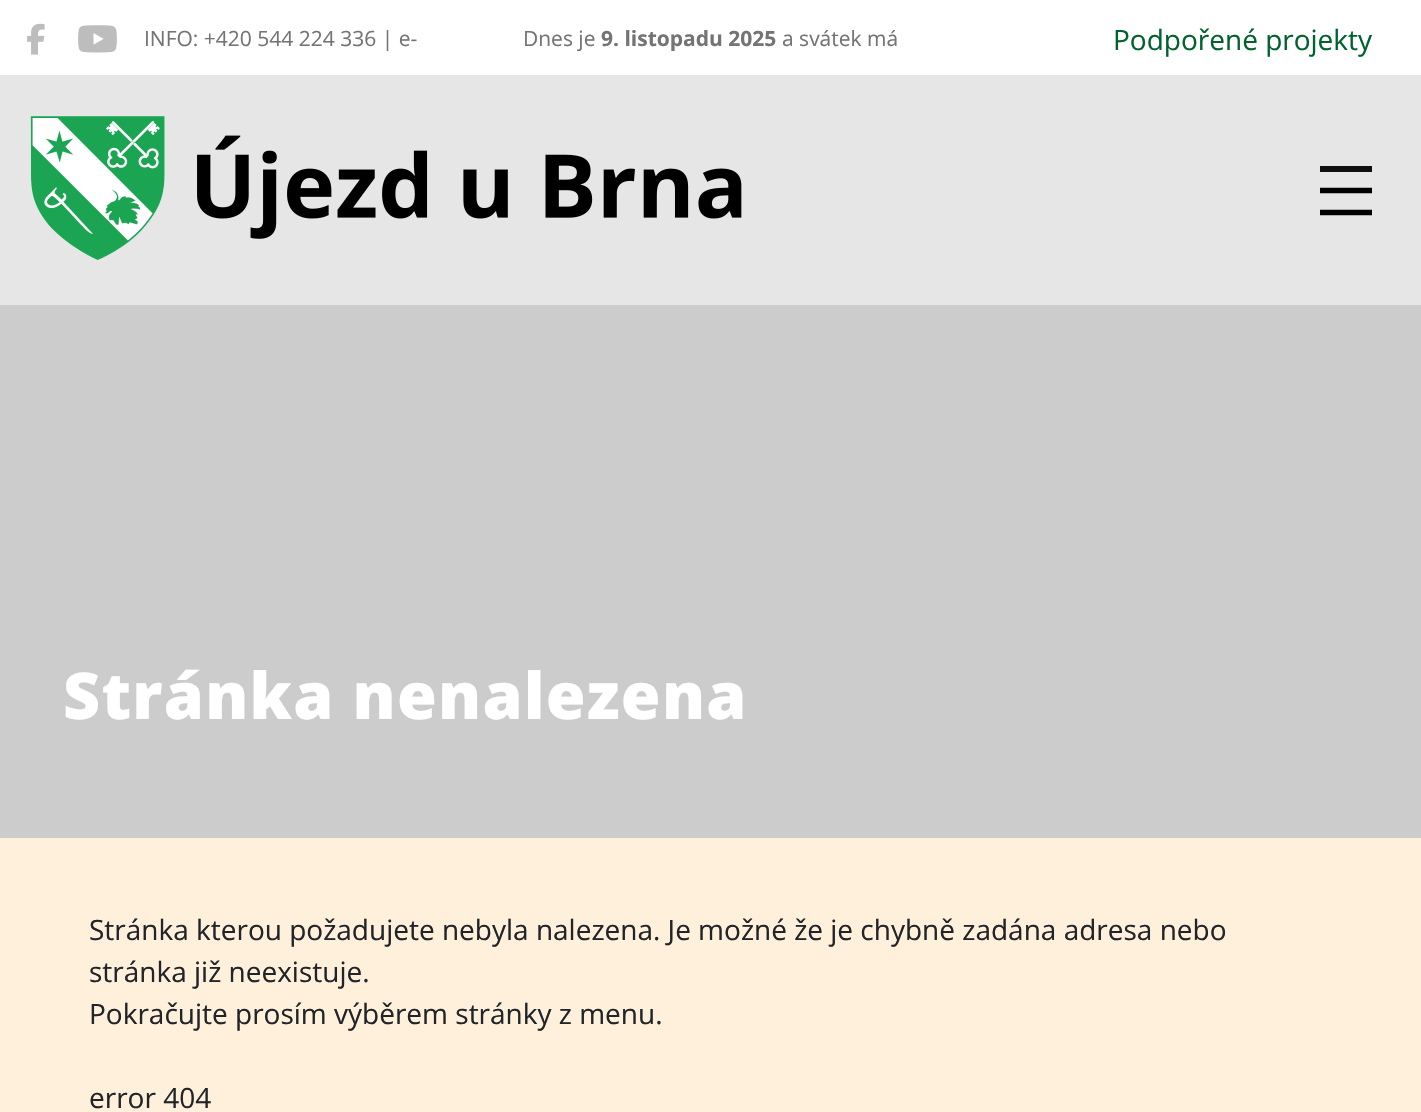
void draw(SkCanvas* canvas) {
	SkPaint paint;
	paint.setAntiAlias(true);
	auto spacedText = [&](const char* s, float x, float y, const SkFont& font, const SkPaint& ink, float letter, float word) {
		std::vector<SkGlyphID> glyphs(font.countText(s, strlen(s), SkTextEncoding::kUTF8));
		std::vector<float> xs(glyphs.size());
		font.textToGlyphs(s, strlen(s), SkTextEncoding::kUTF8, glyphs);
		font.getXPos(glyphs, xs, x);
		float extra = 0;
		for (size_t i = 0; i < glyphs.size(); i++) {
			xs[i] += extra;
			extra += letter + word * (glyphs[i] == font.unicharToGlyph(' '));
		}
		canvas->drawTextBlob(SkTextBlob::MakeFromPosHGlyphs(glyphs, xs, y, font), 0, 0, ink);
	};
	auto svgPath = [&](const char* data, bool evenOdd = false) {
		SkPath result = *SkParsePath::FromSVGString(data);
		if (evenOdd) result.setFillType(SkPathFillType::kEvenOdd);
		return result;
	};
	canvas->clear(0xffffffff);
	paint.setColor(0xffe5e5e5);
	canvas->drawRect(SkRect::MakeXYWH(0, 75, 1421, 2), paint);
	canvas->drawImageRect(SkImages::DeferredFromEncodedData(SkData::MakeFromFileName("img1.png")), SkRect::MakeXYWH(27, 23, 18, 32), SkSamplingOptions());
	canvas->drawImageRect(SkImages::DeferredFromEncodedData(SkData::MakeFromFileName("img2.png")), SkRect::MakeXYWH(78, 25, 39, 28), SkSamplingOptions());
	SkFont f1(fontMgr->matchFamilyStyle("Open Sans", SkFontStyle::Normal()), 21);
	f1.setSubpixel(true);
	paint.setColor(0xff747474);
	canvas->drawString("INFO: +420 544 224 336 | e-", 144, 46, f1, paint);
	canvas->drawString("Dnes je", 523, 46, f1, paint);
	SkFont f2(fontMgr->matchFamilyStyle("Open Sans", SkFontStyle::Bold()), 21);
	f2.setSubpixel(true);
	canvas->drawString("9. listopadu 2025", 601, 46, f2, paint);
	canvas->drawString("a svátek má", 782, 46, f1, paint);
	SkFont f3(fontMgr->matchFamilyStyle("Open Sans", SkFontStyle::Normal()), 28);
	f3.setSubpixel(true);
	paint.setColor(0xff00632d);
	canvas->drawString("Podpořené projekty", 1113, 50, f3, paint);
	paint.setColor(0xffe6e6e6);
	canvas->drawRect(SkRect::MakeXYWH(0, 77, 1421, 228), paint);
	canvas->drawImageRect(SkImages::DeferredFromEncodedData(SkData::MakeFromFileName("img3.png")), SkRect::MakeXYWH(30, 116, 712, 144), SkSamplingOptions());
	paint.setColor(0xff0f0f0f);
	canvas->drawRect(SkRect::MakeXYWH(1320, 166, 52, 6), paint);
	canvas->save();
	canvas->clipRect(SkRect::MakeXYWH(1320, 165, 52, 52));
	paint.setStroke(true);
	paint.setStrokeWidth(5.6);
	paint.setColor(0xff000000);
	canvas->drawPath(svgPath("M1319.5 190.5H1372M1319.5 212.5H1372"), paint);
	canvas->restore();
	paint.setStroke(false);
	paint.setColor(0xffcccccc);
	canvas->drawRect(SkRect::MakeXYWH(0, 305, 1421, 533), paint);
	SkFont f4(fontMgr->matchFamilyStyle("Open Sans", SkFontStyle(800, SkFontStyle::kNormal_Width, SkFontStyle::kUpright_Slant)), 64.4);
	f4.setSubpixel(true);
	paint.setColor(0xffffffff);
	spacedText("Stránka nenalezena", 63, 719, f4, paint, 1.25, 0);
	paint.setColor(0xfffff0dc);
	canvas->drawRect(SkRect::MakeXYWH(0, 838, 1421, 274), paint);
	paint.setColor(0xff212529);
	canvas->drawString("Stránka kterou požadujete nebyla nalezena. Je možné že je chybně zadána adresa nebo", 89, 940, f3, paint);
	canvas->drawString("stránka již neexistuje.", 89, 982, f3, paint);
	canvas->drawString("Pokračujte prosím výběrem stránky z menu.", 89, 1024, f3, paint);
	canvas->drawString("error 404", 89, 1108, f3, paint);
}
